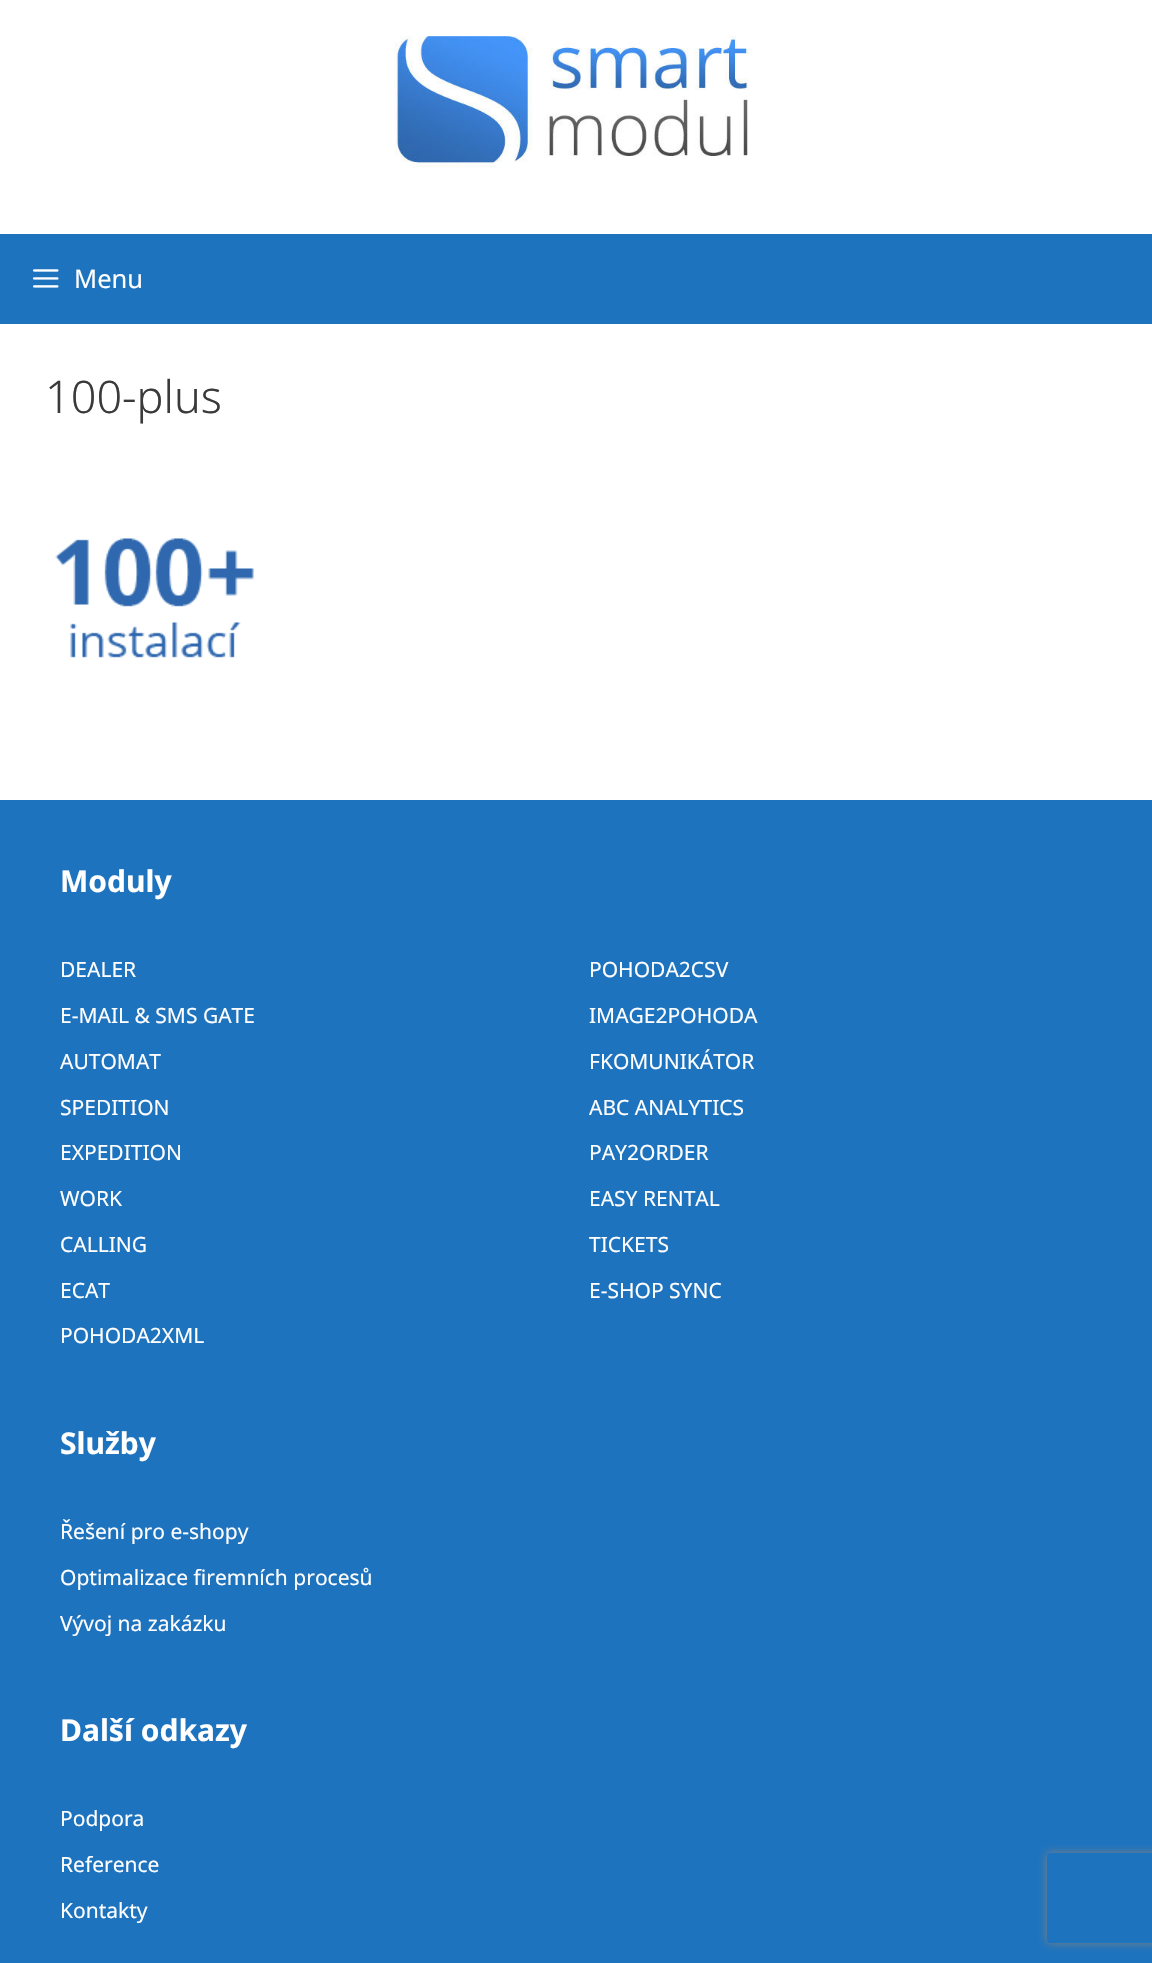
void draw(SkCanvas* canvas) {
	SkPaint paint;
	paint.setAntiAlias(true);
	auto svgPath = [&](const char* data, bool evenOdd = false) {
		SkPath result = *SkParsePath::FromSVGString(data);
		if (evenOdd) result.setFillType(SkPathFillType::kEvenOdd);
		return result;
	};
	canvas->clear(0xffffffff);
	canvas->drawImageRect(SkImages::DeferredFromEncodedData(SkData::MakeFromFileName("img1.png")), SkRect::MakeXYWH(394, 36, 355, 132), SkSamplingOptions());
	paint.setColor(0xff1e73be);
	canvas->drawRect(SkRect::MakeXYWH(0, 234, 1152, 90), paint);
	canvas->drawImageRect(SkImages::DeferredFromEncodedData(SkData::MakeFromFileName("img2.png")), SkRect::MakeXYWH(33, 269, 26, 19), SkSamplingOptions());
	SkFont f1(fontMgr->matchFamilyStyle("Noto Sans", SkFontStyle::Normal()), 25.5);
	f1.setSubpixel(true);
	paint.setColor(0xffffffff);
	canvas->drawString("Menu", 74, 288, f1, paint);
	SkFont f2(fontMgr->matchFamilyStyle("Noto Sans", SkFontStyle(300, SkFontStyle::kNormal_Width, SkFontStyle::kUpright_Slant)), 45);
	f2.setSubpixel(true);
	paint.setColor(0xff3a3a3a);
	canvas->drawString("100-plus", 45, 413, f2, paint);
	canvas->drawImageRect(SkImages::DeferredFromEncodedData(SkData::MakeFromFileName("img3.png")), SkRect::MakeXYWH(55, 538, 199, 120), SkSamplingOptions());
	paint.setColor(0xff1e73be);
	canvas->drawRect(SkRect::MakeXYWH(0, 800, 1152, 1163), paint);
	SkFont f3(fontMgr->matchFamilyStyle("Noto Sans", SkFontStyle::Bold()), 30);
	f3.setSubpixel(true);
	paint.setColor(0xffffffff);
	canvas->drawString("Moduly", 60, 892, f3, paint);
	SkFont f4(fontMgr->matchFamilyStyle("Noto Sans", SkFontStyle::Normal()), 21);
	f4.setSubpixel(true);
	canvas->drawString("DEALER", 60, 977, f4, paint);
	canvas->drawString("POHODA2CSV", 589, 977, f4, paint);
	canvas->drawString("E-MAIL & SMS GATE", 60, 1023, f4, paint);
	canvas->drawString("IMAGE2POHODA", 589, 1023, f4, paint);
	canvas->drawString("AUTOMAT", 60, 1069, f4, paint);
	canvas->drawString("FKOMUNIKÁTOR", 589, 1069, f4, paint);
	canvas->drawString("SPEDITION", 60, 1115, f4, paint);
	canvas->drawString("ABC ANALYTICS", 589, 1115, f4, paint);
	canvas->drawString("EXPEDITION", 60, 1160, f4, paint);
	canvas->drawString("PAY2ORDER", 589, 1160, f4, paint);
	canvas->drawString("WORK", 60, 1206, f4, paint);
	canvas->drawString("EASY RENTAL", 589, 1206, f4, paint);
	canvas->drawString("CALLING", 60, 1252, f4, paint);
	canvas->drawString("TICKETS", 589, 1252, f4, paint);
	canvas->drawString("ECAT", 60, 1298, f4, paint);
	canvas->drawString("E-SHOP SYNC", 589, 1298, f4, paint);
	canvas->drawString("POHODA2XML", 60, 1343, f4, paint);
	canvas->drawString("Služby", 60, 1454, f3, paint);
	canvas->drawString("Řešení pro e-shopy", 60, 1539, f4, paint);
	canvas->drawString("Optimalizace firemních procesů", 60, 1585, f4, paint);
	canvas->drawString("Vývoj na zakázku", 60, 1631, f4, paint);
	canvas->drawString("Další odkazy", 60, 1741, f3, paint);
	canvas->drawString("Podpora", 60, 1826, f4, paint);
	canvas->drawString("Reference", 60, 1872, f4, paint);
	canvas->drawString("Kontakty", 60, 1918, f4, paint);
	canvas->save();
	canvas->clipPath(svgPath("M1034 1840H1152V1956H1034ZM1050 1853H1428C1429.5 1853 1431 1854.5 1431 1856V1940C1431 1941.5 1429.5 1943 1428 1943H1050C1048.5 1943 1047 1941.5 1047 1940V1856C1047 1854.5 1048.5 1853 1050 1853Z", true), true);
	paint.setColor(0xff808080);
	paint.setMaskFilter(SkMaskFilter::MakeBlur(kNormal_SkBlurStyle, 4));
	canvas->drawRoundRect(SkRect::MakeXYWH(1047, 1853, 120, 90), 3, 3, paint);
	paint.setMaskFilter(nullptr);
	canvas->restore();
}
